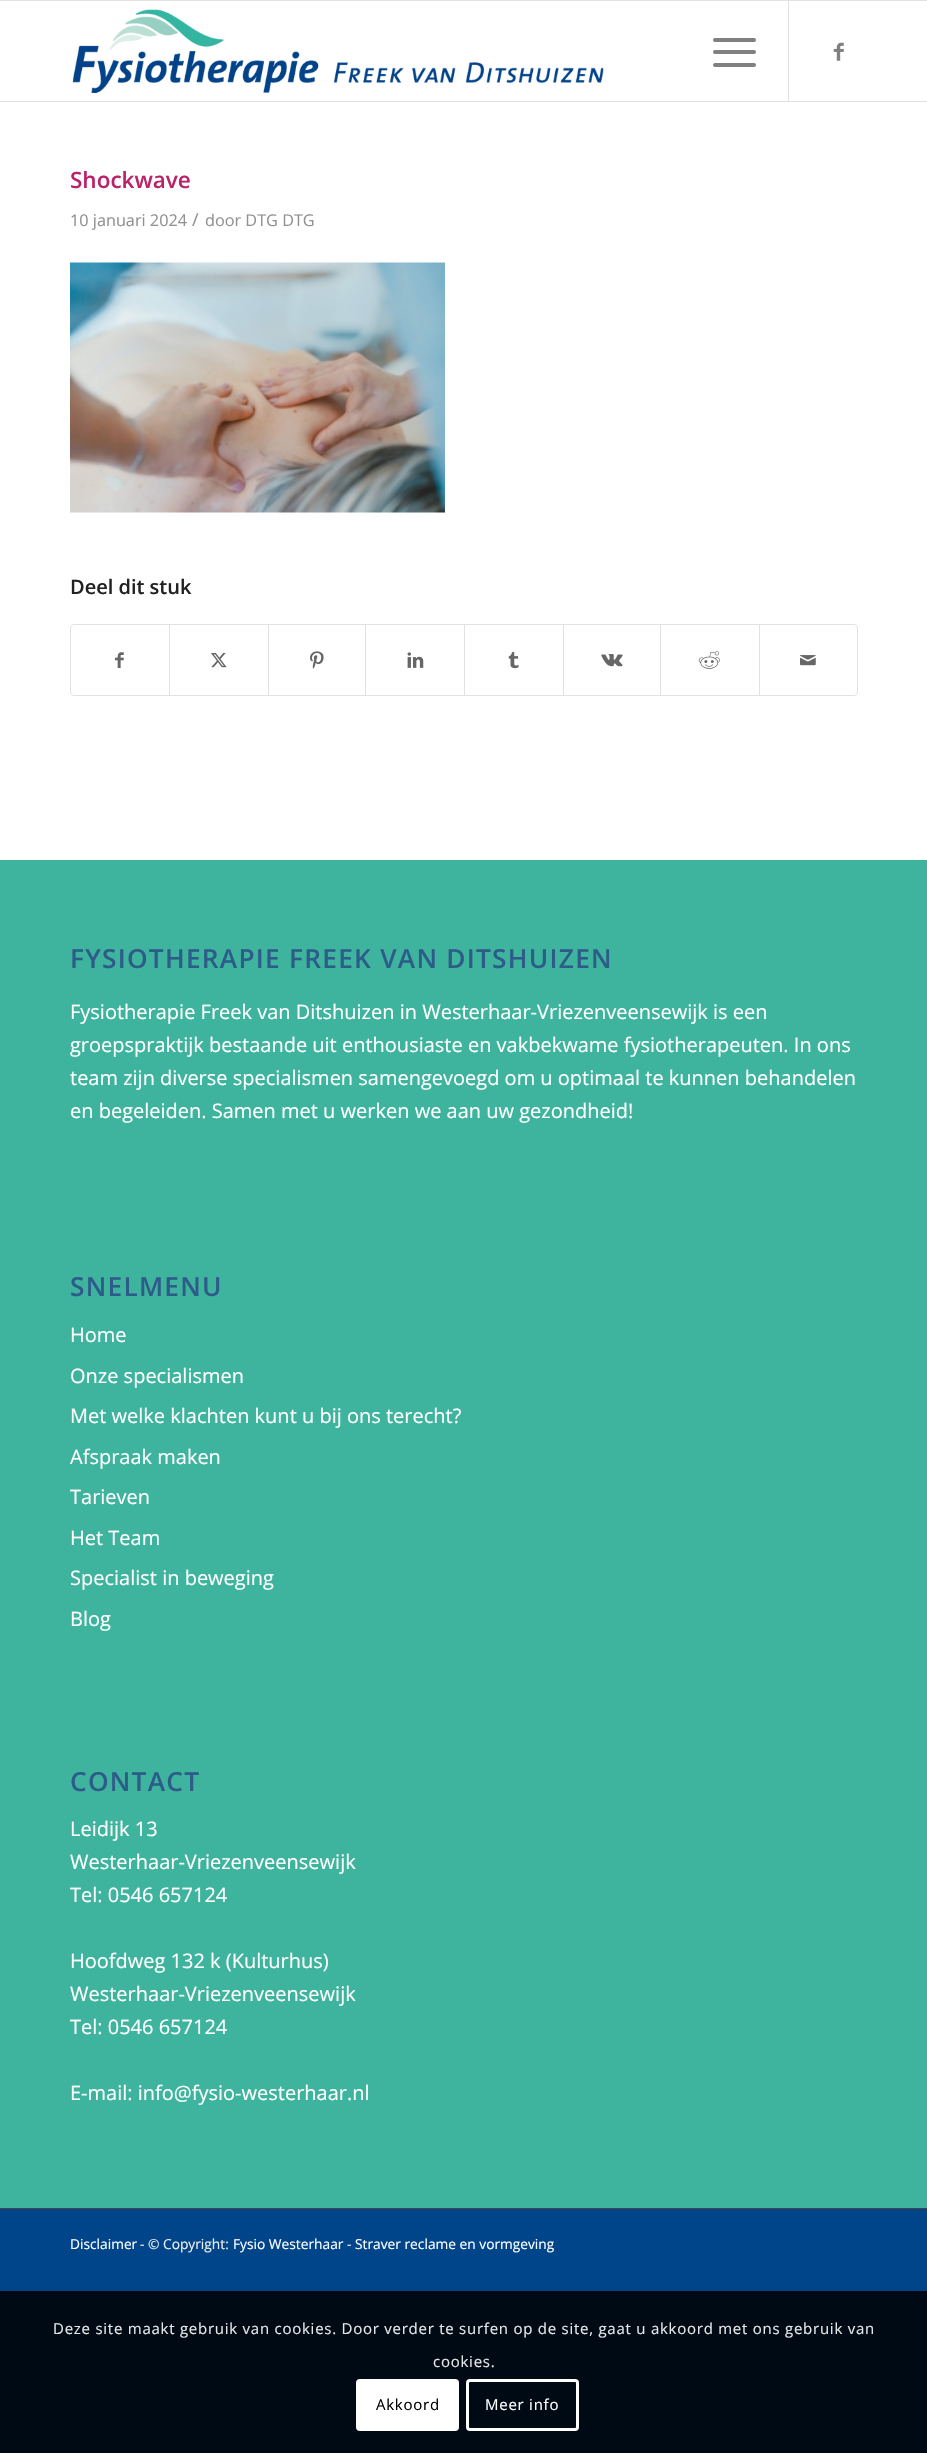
void draw(SkCanvas* canvas) {
	SkPaint paint;
	paint.setAntiAlias(true);
	auto spacedText = [&](const char* s, float x, float y, const SkFont& font, const SkPaint& ink, float letter, float word) {
		std::vector<SkGlyphID> glyphs(font.countText(s, strlen(s), SkTextEncoding::kUTF8));
		std::vector<float> xs(glyphs.size());
		font.textToGlyphs(s, strlen(s), SkTextEncoding::kUTF8, glyphs);
		font.getXPos(glyphs, xs, x);
		float extra = 0;
		for (size_t i = 0; i < glyphs.size(); i++) {
			xs[i] += extra;
			extra += letter + word * (glyphs[i] == font.unicharToGlyph(' '));
		}
		canvas->drawTextBlob(SkTextBlob::MakeFromPosHGlyphs(glyphs, xs, y, font), 0, 0, ink);
	};
	canvas->clear(0xff004589);
	paint.setColor(0xffffffff);
	canvas->drawRect(SkRect::MakeXYWH(0, 1, 927, 859), paint);
	paint.setColor(0xffe1e1e1);
	canvas->drawRect(SkRect::MakeXYWH(0, 0, 927, 1), paint);
	canvas->drawRect(SkRect::MakeXYWH(0, 101, 927, 1), paint);
	canvas->drawImageRect(SkImages::DeferredFromEncodedData(SkData::MakeFromFileName("img1.png")), SkRect::MakeXYWH(72, 9, 532, 84), SkSamplingOptions());
	canvas->drawRect(SkRect::MakeXYWH(788, 1, 1, 100), paint);
	paint.setColor(0xff808080);
	canvas->drawRoundRect(SkRect::MakeXYWH(713, 50, 43, 4), 2, 2, paint);
	canvas->drawRoundRect(SkRect::MakeXYWH(713, 38, 43, 4), 2, 2, paint);
	canvas->drawRoundRect(SkRect::MakeXYWH(713, 63, 43, 4), 2, 2, paint);
	canvas->drawImageRect(SkImages::DeferredFromEncodedData(SkData::MakeFromFileName("img2.png")), SkRect::MakeXYWH(833, 42, 11, 19), SkSamplingOptions());
	SkFont f1(fontMgr->matchFamilyStyle("Open Sans", SkFontStyle(600, SkFontStyle::kNormal_Width, SkFontStyle::kUpright_Slant)), 22.5);
	f1.setSubpixel(true);
	paint.setColor(0xffba2369);
	canvas->drawString("Shockwave", 70, 188, f1, paint);
	SkFont f2(fontMgr->matchFamilyStyle("Open Sans", SkFontStyle::Normal()), 16.25);
	f2.setSubpixel(true);
	paint.setColor(0xff919191);
	canvas->drawString("10 januari 2024", 70, 226, f2, paint);
	SkFont f3(fontMgr->matchFamilyStyle("Open Sans", SkFontStyle::Normal()), 18);
	f3.setSubpixel(true);
	canvas->drawString("/", 192, 226, f3, paint);
	canvas->drawString("door DTG DTG", 205, 226, f2, paint);
	canvas->drawImageRect(SkImages::DeferredFromEncodedData(SkData::MakeFromFileName("img3.png")), SkRect::MakeXYWH(70, 262, 375, 251), SkSamplingOptions());
	SkFont f4(fontMgr->matchFamilyStyle("Open Sans", SkFontStyle(600, SkFontStyle::kNormal_Width, SkFontStyle::kUpright_Slant)), 20);
	f4.setSubpixel(true);
	paint.setColor(0xff222222);
	canvas->drawString("Deel dit stuk", 70, 594, f4, paint);
	paint.setStroke(true);
	paint.setStrokeWidth(1);
	paint.setColor(0xffe1e1e1);
	canvas->drawRoundRect(SkRect::MakeXYWH(70.5, 624.5, 787, 71), 3.5, 3.5, paint);
	canvas->drawImageRect(SkImages::DeferredFromEncodedData(SkData::MakeFromFileName("img4.png")), SkRect::MakeXYWH(115, 652, 9, 16), SkSamplingOptions());
	paint.setStroke(false);
	canvas->drawRect(SkRect::MakeXYWH(169, 625, 1, 70), paint);
	canvas->drawImageRect(SkImages::DeferredFromEncodedData(SkData::MakeFromFileName("img5.png")), SkRect::MakeXYWH(211, 653, 16, 15), SkSamplingOptions());
	canvas->drawRect(SkRect::MakeXYWH(268, 625, 1, 70), paint);
	canvas->drawImageRect(SkImages::DeferredFromEncodedData(SkData::MakeFromFileName("img6.png")), SkRect::MakeXYWH(310, 651, 14, 18), SkSamplingOptions());
	canvas->drawRect(SkRect::MakeXYWH(365, 625, 1, 70), paint);
	canvas->drawImageRect(SkImages::DeferredFromEncodedData(SkData::MakeFromFileName("img7.png")), SkRect::MakeXYWH(407, 652, 17, 16), SkSamplingOptions());
	canvas->drawRect(SkRect::MakeXYWH(464, 625, 1, 70), paint);
	canvas->drawImageRect(SkImages::DeferredFromEncodedData(SkData::MakeFromFileName("img8.png")), SkRect::MakeXYWH(508, 652, 11, 17), SkSamplingOptions());
	canvas->drawRect(SkRect::MakeXYWH(563, 625, 1, 70), paint);
	canvas->drawImageRect(SkImages::DeferredFromEncodedData(SkData::MakeFromFileName("img9.png")), SkRect::MakeXYWH(601, 654, 22, 13), SkSamplingOptions());
	canvas->drawRect(SkRect::MakeXYWH(660, 625, 1, 70), paint);
	canvas->drawImageRect(SkImages::DeferredFromEncodedData(SkData::MakeFromFileName("img10.png")), SkRect::MakeXYWH(698, 651, 22, 18), SkSamplingOptions());
	canvas->drawRect(SkRect::MakeXYWH(759, 625, 1, 70), paint);
	canvas->drawImageRect(SkImages::DeferredFromEncodedData(SkData::MakeFromFileName("img11.png")), SkRect::MakeXYWH(800, 655, 16, 11), SkSamplingOptions());
	paint.setColor(0xff3eb49e);
	canvas->drawRect(SkRect::MakeXYWH(0, 860, 927, 1348), paint);
	SkFont f5(fontMgr->matchFamilyStyle("Open Sans", SkFontStyle(600, SkFontStyle::kNormal_Width, SkFontStyle::kUpright_Slant)), 26.25);
	f5.setSubpixel(true);
	paint.setColor(0xff2d5c88);
	spacedText("FYSIOTHERAPIE FREEK VAN DITSHUIZEN", 70, 968, f5, paint, 1.25, 0);
	SkFont f6(fontMgr->matchFamilyStyle("Open Sans", SkFontStyle::Normal()), 20);
	f6.setSubpixel(true);
	paint.setColor(0xffffffff);
	canvas->drawString("Fysiotherapie Freek van Ditshuizen in Westerhaar-Vriezenveensewijk is een", 70, 1019, f6, paint);
	canvas->drawString("groepspraktijk bestaande uit enthousiaste en vakbekwame fysiotherapeuten. In ons", 70, 1052, f6, paint);
	canvas->drawString("team zijn diverse specialismen samengevoegd om u optimaal te kunnen behandelen", 70, 1085, f6, paint);
	canvas->drawString("en begeleiden. Samen met u werken we aan uw gezondheid!", 70, 1118, f6, paint);
	paint.setColor(0xff2d5c88);
	spacedText("SNELMENU", 70, 1296, f5, paint, 1.25, 0);
	paint.setColor(0xffffffff);
	canvas->drawString("Home", 70, 1342, f6, paint);
	canvas->drawString("Onze specialismen", 70, 1383, f6, paint);
	canvas->drawString("Met welke klachten kunt u bij ons terecht?", 70, 1423, f6, paint);
	canvas->drawString("Afspraak maken", 70, 1464, f6, paint);
	canvas->drawString("Tarieven", 70, 1504, f6, paint);
	canvas->drawString("Het Team", 70, 1545, f6, paint);
	canvas->drawString("Specialist in beweging", 70, 1585, f6, paint);
	canvas->drawString("Blog", 70, 1626, f6, paint);
	paint.setColor(0xff2d5c88);
	spacedText("CONTACT", 70, 1791, f5, paint, 1.25, 0);
	paint.setColor(0xffffffff);
	canvas->drawString("Leidijk 13", 70, 1836, f6, paint);
	canvas->drawString("Westerhaar-Vriezenveensewijk", 70, 1869, f6, paint);
	canvas->drawString("Tel: 0546 657124", 70, 1902, f6, paint);
	canvas->drawString("Hoofdweg 132 k (Kulturhus)", 70, 1968, f6, paint);
	canvas->drawString("Westerhaar-Vriezenveensewijk", 70, 2001, f6, paint);
	canvas->drawString("Tel: 0546 657124", 70, 2034, f6, paint);
	canvas->drawString("E-mail: info@fysio-westerhaar.nl", 70, 2100, f6, paint);
	paint.setColor(0xff444444);
	canvas->drawRect(SkRect::MakeXYWH(0, 2208, 927, 1), paint);
	SkFont f7(fontMgr->matchFamilyStyle("Open Sans", SkFontStyle::Normal()), 13.75);
	f7.setSubpixel(true);
	paint.setColor(0xffffffff);
	canvas->drawString("Disclaimer", 70, 2249, f7, paint);
	paint.setColor(0xffeeeeee);
	canvas->drawString("- © Copyright:", 140, 2249, f7, paint);
	paint.setColor(0xffffffff);
	canvas->drawString("Fysio Westerhaar", 233, 2249, f7, paint);
	paint.setColor(0xffeeeeee);
	canvas->drawString("-", 347, 2249, f7, paint);
	paint.setColor(0xffffffff);
	canvas->drawString("Straver reclame en vormgeving", 355, 2249, f7, paint);
	paint.setColor(0xff000a15);
	canvas->drawRect(SkRect::MakeXYWH(0, 2291, 927, 162), paint);
	SkFont f8(fontMgr->matchFamilyStyle("Open Sans", SkFontStyle::Normal()), 15);
	f8.setSubpixel(true);
	paint.setColor(0xffe6e7e8);
	spacedText("Deze site maakt gebruik van cookies. Door verder te surfen op de site, gaat u akkoord met ons gebruik van", 53, 2334, f8, paint, 0.75, 0);
	spacedText("cookies.", 433, 2367, f8, paint, 0.75, 0);
	paint.setColor(0xffffffff);
	canvas->drawRoundRect(SkRect::MakeXYWH(356, 2379, 103, 52), 4, 4, paint);
	paint.setColor(0xff000000);
	spacedText("Akkoord", 376, 2410, f8, paint, 0.75, 0);
	paint.setStroke(true);
	paint.setStrokeWidth(3);
	paint.setColor(0xffffffff);
	canvas->drawRoundRect(SkRect::MakeXYWH(467.5, 2380.5, 110, 49), 2.5, 2.5, paint);
	paint.setStroke(false);
	spacedText("Meer info", 485, 2410, f8, paint, 0.75, 0);
}
